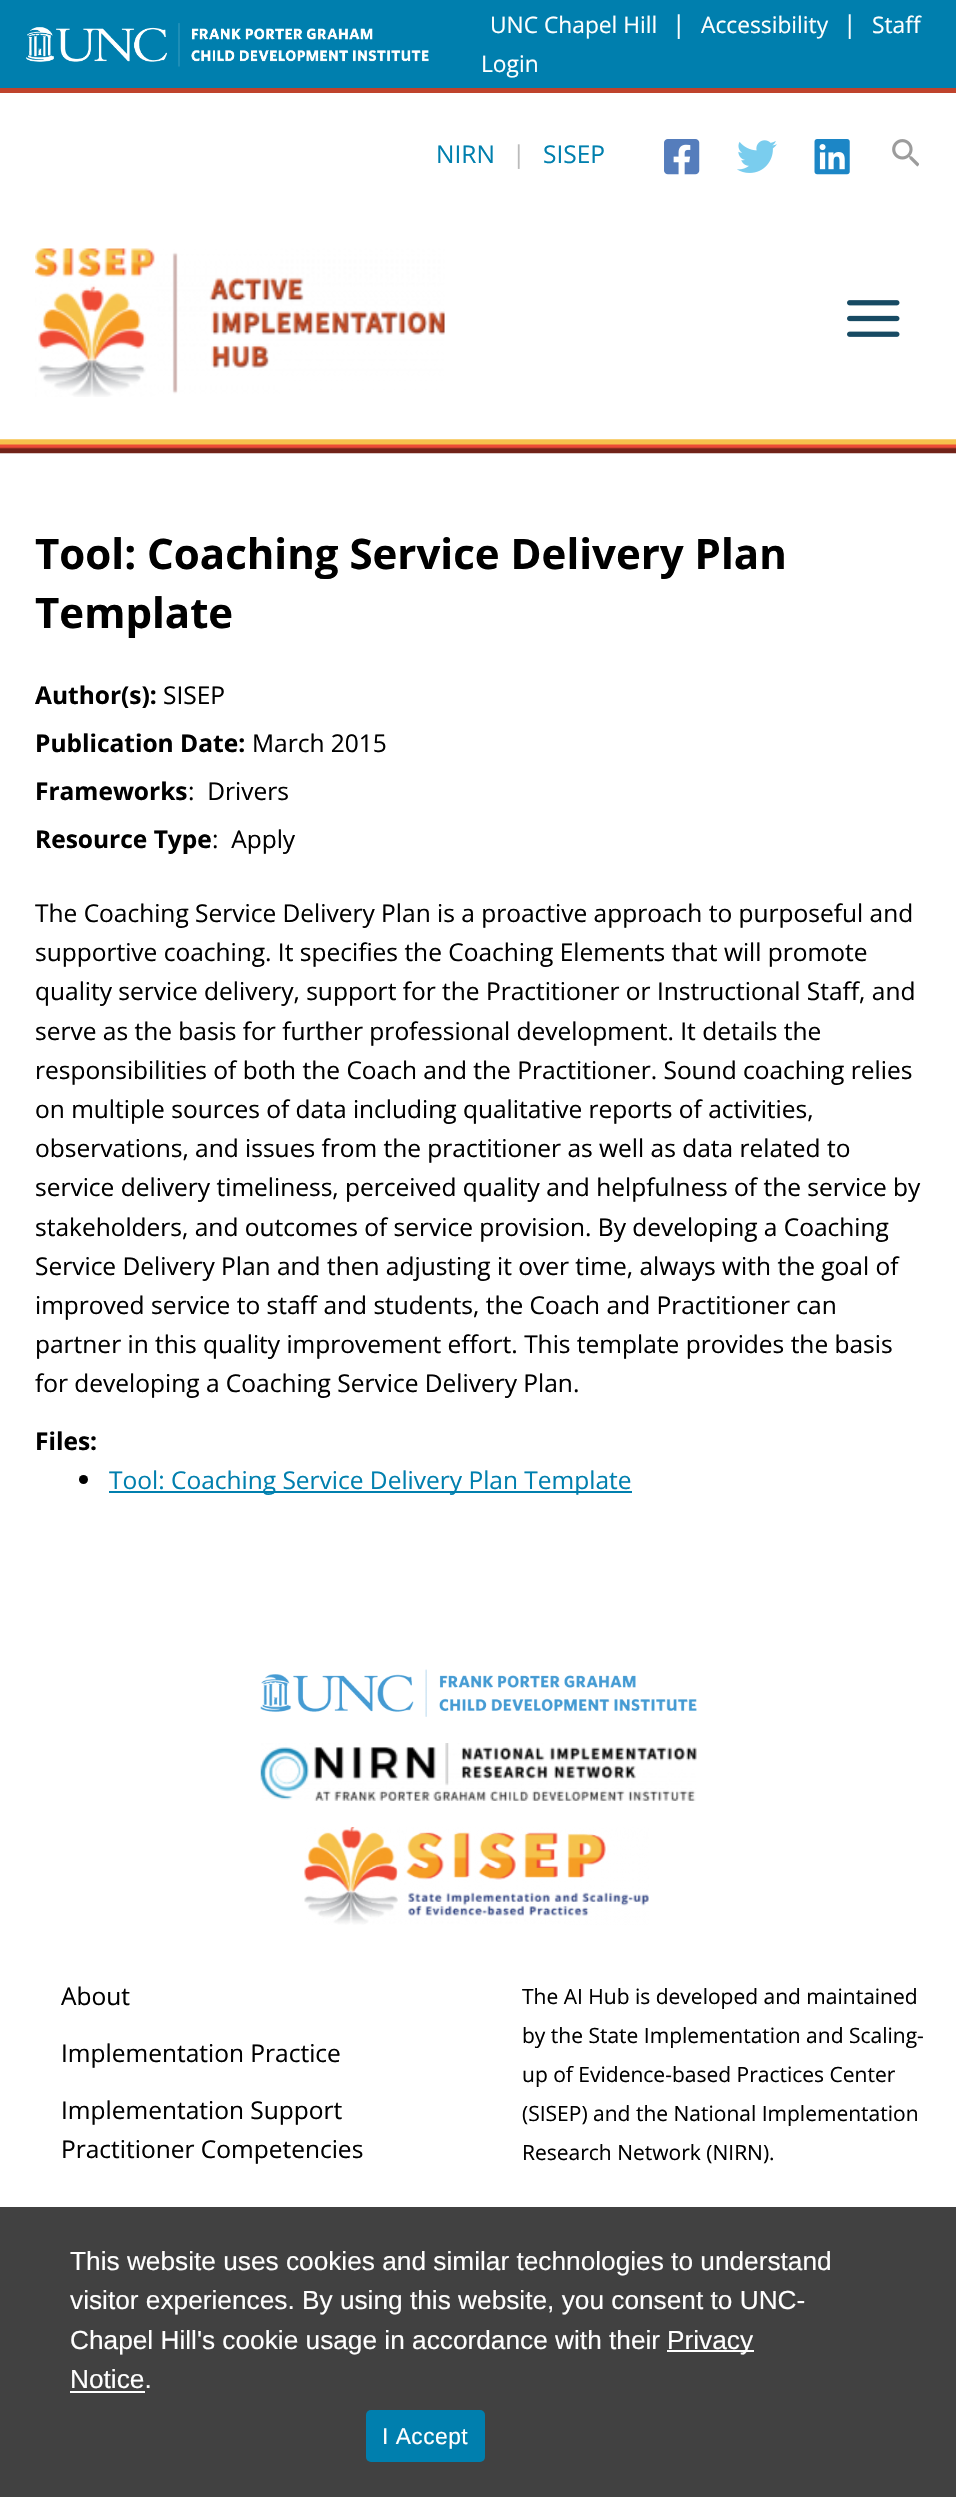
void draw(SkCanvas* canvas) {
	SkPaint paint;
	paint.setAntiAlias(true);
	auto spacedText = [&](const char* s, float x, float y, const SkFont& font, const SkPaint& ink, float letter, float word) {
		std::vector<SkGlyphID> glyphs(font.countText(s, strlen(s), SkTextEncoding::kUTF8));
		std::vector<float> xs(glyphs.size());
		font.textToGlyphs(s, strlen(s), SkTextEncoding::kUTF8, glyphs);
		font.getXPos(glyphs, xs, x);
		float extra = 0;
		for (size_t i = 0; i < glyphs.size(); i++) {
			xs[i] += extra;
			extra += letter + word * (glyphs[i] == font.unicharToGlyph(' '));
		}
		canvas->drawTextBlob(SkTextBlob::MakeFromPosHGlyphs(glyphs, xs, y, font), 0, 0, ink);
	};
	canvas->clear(0xffffffff);
	canvas->drawImageRect(SkImages::DeferredFromEncodedData(SkData::MakeFromFileName("img1.png")), SkRect::MakeXYWH(0, 439, 956, 15), SkSamplingOptions());
	paint.setColor(0xff007fae);
	canvas->drawRect(SkRect::MakeXYWH(0, 0, 956, 88), paint);
	canvas->drawImageRect(SkImages::DeferredFromEncodedData(SkData::MakeFromFileName("img2.png")), SkRect::MakeXYWH(26, 23, 403, 44), SkSamplingOptions());
	SkFont f1(fontMgr->matchFamilyStyle("Open Sans", SkFontStyle::Normal()), 22.75);
	f1.setSubpixel(true);
	paint.setColor(0xffffffff);
	canvas->drawString("UNC Chapel Hill", 490, 33, f1, paint);
	SkFont f2(fontMgr->matchFamilyStyle("Open Sans", SkFontStyle::Normal()), 24.5);
	f2.setSubpixel(true);
	canvas->drawString("|", 672, 33, f2, paint);
	canvas->drawString("Accessibility", 701, 33, f1, paint);
	canvas->drawString("|", 843, 33, f2, paint);
	canvas->drawString("Staff", 872, 33, f1, paint);
	canvas->drawString("Login", 481, 72, f1, paint);
	paint.setColor(0xffbf432c);
	canvas->drawRect(SkRect::MakeXYWH(0, 88, 956, 5), paint);
	paint.setColor(0xff007fae);
	canvas->drawString("NIRN", 436, 163, f2, paint);
	paint.setColor(0xffbbbbbb);
	canvas->drawString("|", 512, 163, f2, paint);
	paint.setColor(0xff007fae);
	canvas->drawString("SISEP", 543, 163, f2, paint);
	canvas->drawImageRect(SkImages::DeferredFromEncodedData(SkData::MakeFromFileName("img3.png")), SkRect::MakeXYWH(664, 139, 36, 36), SkSamplingOptions());
	canvas->drawImageRect(SkImages::DeferredFromEncodedData(SkData::MakeFromFileName("img4.png")), SkRect::MakeXYWH(737, 140, 40, 33), SkSamplingOptions());
	canvas->drawImageRect(SkImages::DeferredFromEncodedData(SkData::MakeFromFileName("img5.png")), SkRect::MakeXYWH(814, 139, 36, 36), SkSamplingOptions());
	canvas->drawImageRect(SkImages::DeferredFromEncodedData(SkData::MakeFromFileName("img6.png")), SkRect::MakeXYWH(892, 139, 27, 28), SkSamplingOptions());
	canvas->drawImageRect(SkImages::DeferredFromEncodedData(SkData::MakeFromFileName("img7.png")), SkRect::MakeXYWH(35, 248, 410, 149), SkSamplingOptions());
	canvas->drawImageRect(SkImages::DeferredFromEncodedData(SkData::MakeFromFileName("img8.png")), SkRect::MakeXYWH(847, 300, 53, 37), SkSamplingOptions());
	SkFont f3(fontMgr->matchFamilyStyle("Open Sans", SkFontStyle::Bold()), 42);
	f3.setSubpixel(true);
	paint.setColor(0xff000000);
	canvas->drawString("Tool: Coaching Service Delivery Plan", 35, 569, f3, paint);
	canvas->drawString("Template", 35, 628, f3, paint);
	SkFont f4(fontMgr->matchFamilyStyle("Open Sans", SkFontStyle::Bold()), 24.5);
	f4.setSubpixel(true);
	canvas->drawString("Author(s):", 35, 704, f4, paint);
	canvas->drawString("SISEP", 163, 704, f2, paint);
	canvas->drawString("Publication Date:", 35, 752, f4, paint);
	canvas->drawString("March 2015", 252, 752, f2, paint);
	canvas->drawString("Frameworks", 35, 800, f4, paint);
	canvas->drawString(":  Drivers", 188, 800, f2, paint);
	canvas->drawString("Resource Type", 35, 848, f4, paint);
	canvas->drawString(":  Apply", 212, 848, f2, paint);
	canvas->drawString("The Coaching Service Delivery Plan is a proactive approach to purposeful and", 35, 922, f2, paint);
	canvas->drawString("supportive coaching. It specifies the Coaching Elements that will promote", 35, 961, f2, paint);
	canvas->drawString("quality service delivery, support for the Practitioner or Instructional Staff, and", 35, 1000, f2, paint);
	canvas->drawString("serve as the basis for further professional development. It details the", 35, 1040, f2, paint);
	canvas->drawString("responsibilities of both the Coach and the Practitioner. Sound coaching relies", 35, 1079, f2, paint);
	canvas->drawString("on multiple sources of data including qualitative reports of activities,", 35, 1118, f2, paint);
	canvas->drawString("observations, and issues from the practitioner as well as data related to", 35, 1157, f2, paint);
	canvas->drawString("service delivery timeliness, perceived quality and helpfulness of the service by", 35, 1196, f2, paint);
	canvas->drawString("stakeholders, and outcomes of service provision. By developing a Coaching", 35, 1236, f2, paint);
	canvas->drawString("Service Delivery Plan and then adjusting it over time, always with the goal of", 35, 1275, f2, paint);
	canvas->drawString("improved service to staff and students, the Coach and Practitioner can", 35, 1314, f2, paint);
	canvas->drawString("partner in this quality improvement effort. This template provides the basis", 35, 1353, f2, paint);
	canvas->drawString("for developing a Coaching Service Delivery Plan.", 35, 1392, f2, paint);
	canvas->drawString("Files:", 35, 1450, f4, paint);
	canvas->drawCircle(83.5, 1479.5, 4.5, paint);
	paint.setColor(0xff007fae);
	canvas->drawRect(SkRect::MakeXYWH(109, 1491, 523, 2), paint);
	canvas->drawString("Tool: Coaching Service Delivery Plan Template", 109, 1489, f2, paint);
	canvas->drawImageRect(SkImages::DeferredFromEncodedData(SkData::MakeFromFileName("img9.png")), SkRect::MakeXYWH(260, 1669, 437, 48), SkSamplingOptions());
	canvas->drawImageRect(SkImages::DeferredFromEncodedData(SkData::MakeFromFileName("img10.png")), SkRect::MakeXYWH(260, 1743, 437, 58), SkSamplingOptions());
	canvas->drawImageRect(SkImages::DeferredFromEncodedData(SkData::MakeFromFileName("img11.png")), SkRect::MakeXYWH(304, 1827, 345, 98), SkSamplingOptions());
	paint.setColor(0xff000000);
	canvas->drawString("About", 61, 2005, f2, paint);
	canvas->drawString("Implementation Practice", 61, 2062, f2, paint);
	canvas->drawString("Implementation Support", 61, 2119, f2, paint);
	canvas->drawString("Practitioner Competencies", 61, 2158, f2, paint);
	SkFont f5(fontMgr->matchFamilyStyle("Open Sans", SkFontStyle::Normal()), 21);
	f5.setSubpixel(true);
	canvas->drawString("The AI Hub is developed and maintained", 522, 2004, f5, paint);
	canvas->drawString("by the State Implementation and Scaling-", 522, 2043, f5, paint);
	canvas->drawString("up of Evidence-based Practices Center", 522, 2082, f5, paint);
	canvas->drawString("(SISEP) and the National Implementation", 522, 2121, f5, paint);
	canvas->drawString("Research Network (NIRN).", 522, 2160, f5, paint);
	paint.setColor(0xff414141);
	canvas->drawRect(SkRect::MakeXYWH(0, 2207, 956, 290), paint);
	SkFont f6(fontMgr->matchFamilyStyle("Liberation Sans", SkFontStyle::Normal()), 26.25);
	f6.setSubpixel(true);
	paint.setColor(0xffffffff);
	canvas->drawString("This website uses cookies and similar technologies to understand", 70, 2270, f6, paint);
	canvas->drawString("visitor experiences. By using this website, you consent to UNC-", 70, 2309, f6, paint);
	canvas->drawString("Chapel Hill's cookie usage in accordance with their", 70, 2349, f6, paint);
	canvas->drawRect(SkRect::MakeXYWH(667, 2350, 87, 2), paint);
	canvas->drawString("Privacy", 667, 2349, f6, paint);
	canvas->drawString("Notice.", 70, 2388, f6, paint);
	canvas->drawRect(SkRect::MakeXYWH(70, 2391, 75, 2), paint);
	paint.setColor(0xff007fae);
	canvas->drawRoundRect(SkRect::MakeXYWH(366, 2410, 119, 52), 5, 5, paint);
	SkFont f7(fontMgr->matchFamilyStyle("Liberation Sans", SkFontStyle::Normal()), 22.75);
	f7.setSubpixel(true);
	paint.setColor(0xffffffff);
	spacedText("I Accept", 382, 2444, f7, paint, 0.5, 0);
}
